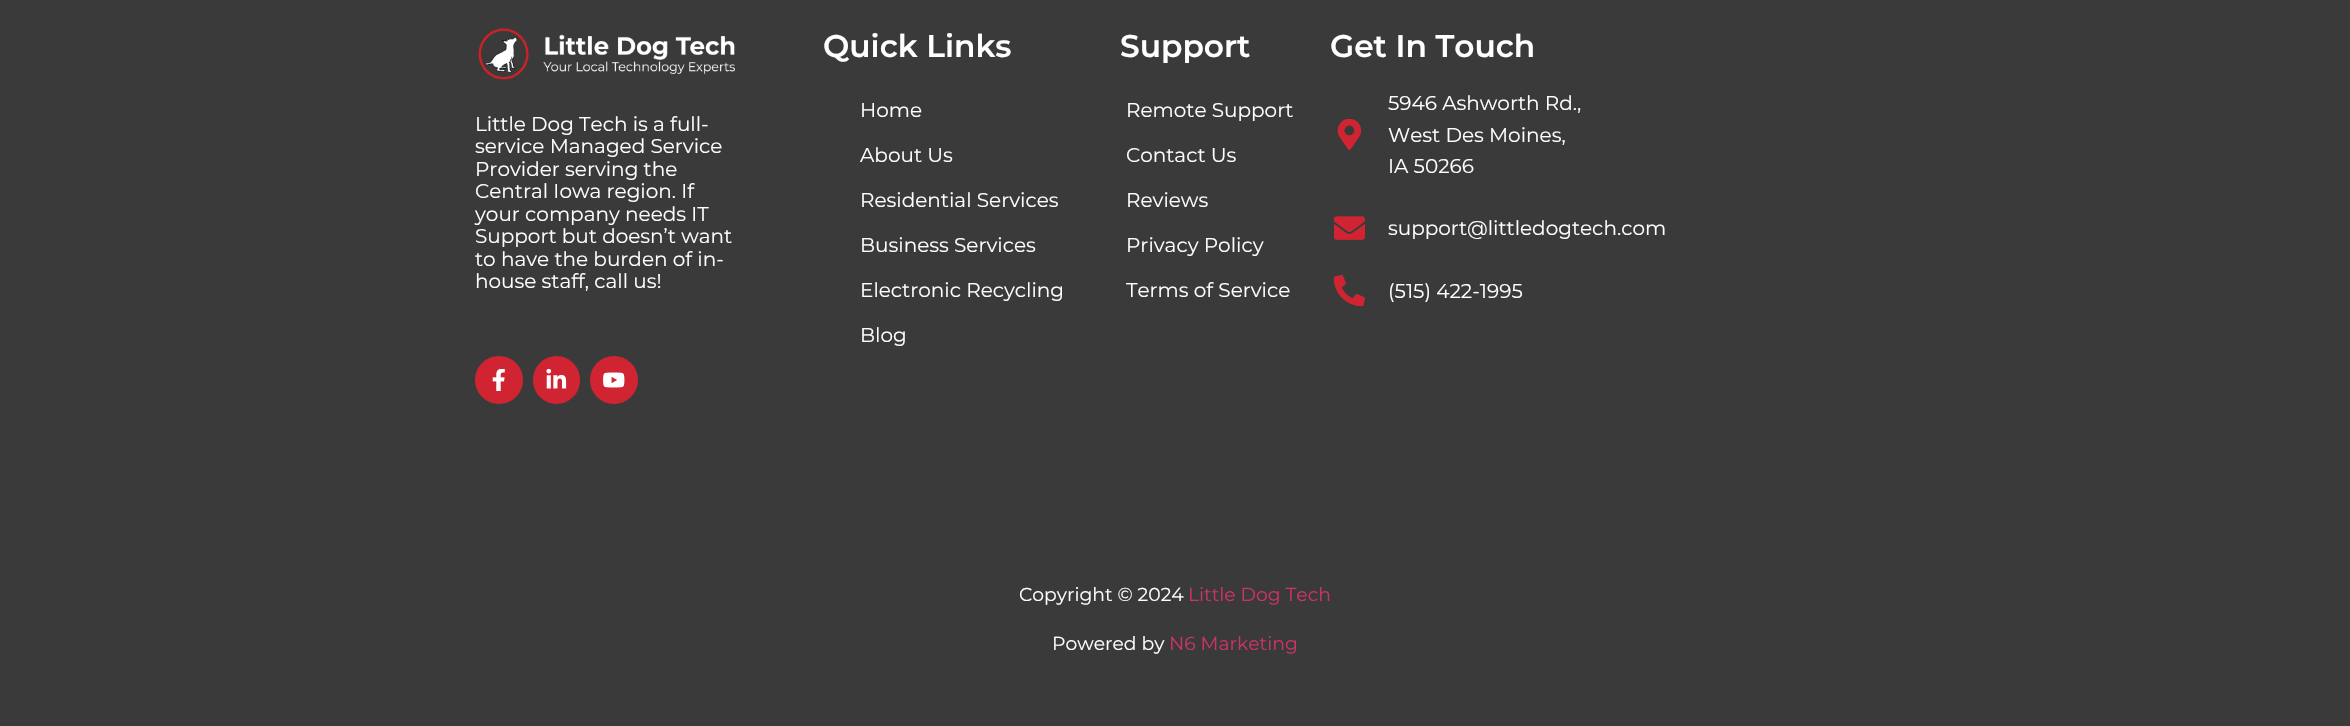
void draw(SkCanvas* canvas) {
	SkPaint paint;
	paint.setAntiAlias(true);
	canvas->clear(0xff3a3a3a);
	canvas->drawImageRect(SkImages::DeferredFromEncodedData(SkData::MakeFromFileName("img1.png")), SkRect::MakeXYWH(478, 28, 257, 52), SkSamplingOptions());
	SkFont f1(fontMgr->matchFamilyStyle("Montserrat", SkFontStyle::Normal()), 20);
	f1.setSubpixel(true);
	paint.setColor(0xffffffff);
	canvas->drawString("Little Dog Tech is a full-", 475, 131, f1, paint);
	canvas->drawString("service Managed Service", 475, 153, f1, paint);
	canvas->drawString("Provider serving the", 475, 176, f1, paint);
	canvas->drawString("Central Iowa region. If", 475, 198, f1, paint);
	canvas->drawString("your company needs IT", 475, 221, f1, paint);
	canvas->drawString("Support but doesn’t want", 475, 243, f1, paint);
	canvas->drawString("to have the burden of in-", 475, 266, f1, paint);
	canvas->drawString("house staff, call us!", 475, 288, f1, paint);
	paint.setColor(0xffd12432);
	canvas->drawCircle(499, 380, 24, paint);
	canvas->drawImageRect(SkImages::DeferredFromEncodedData(SkData::MakeFromFileName("img2.png")), SkRect::MakeXYWH(492, 369, 13, 22), SkSamplingOptions());
	canvas->drawRoundRect(SkRect::MakeXYWH(533, 356, 47, 48), 23.5, 23.5, paint);
	canvas->drawImageRect(SkImages::DeferredFromEncodedData(SkData::MakeFromFileName("img3.png")), SkRect::MakeXYWH(546, 369, 21, 20), SkSamplingOptions());
	canvas->drawCircle(614, 380, 24, paint);
	canvas->drawImageRect(SkImages::DeferredFromEncodedData(SkData::MakeFromFileName("img4.png")), SkRect::MakeXYWH(603, 372, 22, 16), SkSamplingOptions());
	SkFont f2(fontMgr->matchFamilyStyle("Montserrat", SkFontStyle(600, SkFontStyle::kNormal_Width, SkFontStyle::kUpright_Slant)), 31.25);
	f2.setSubpixel(true);
	paint.setColor(0xffffffff);
	canvas->drawString("Quick Links", 823, 57, f2, paint);
	canvas->drawString("Home", 860, 117, f1, paint);
	canvas->drawString("About Us", 860, 162, f1, paint);
	canvas->drawString("Residential Services", 860, 207, f1, paint);
	canvas->drawString("Business Services", 860, 252, f1, paint);
	canvas->drawString("Electronic Recycling", 860, 297, f1, paint);
	canvas->drawString("Blog", 860, 342, f1, paint);
	canvas->drawString("Support", 1120, 57, f2, paint);
	canvas->drawString("Remote Support", 1126, 117, f1, paint);
	canvas->drawString("Contact Us", 1126, 162, f1, paint);
	canvas->drawString("Reviews", 1126, 207, f1, paint);
	canvas->drawString("Privacy Policy", 1126, 252, f1, paint);
	canvas->drawString("Terms of Service", 1126, 297, f1, paint);
	canvas->drawString("Get In Touch", 1330, 57, f2, paint);
	canvas->drawImageRect(SkImages::DeferredFromEncodedData(SkData::MakeFromFileName("img5.png")), SkRect::MakeXYWH(1337, 119, 25, 31), SkSamplingOptions());
	canvas->drawString("5946 Ashworth Rd.,", 1388, 110, f1, paint);
	canvas->drawString("West Des Moines,", 1388, 142, f1, paint);
	canvas->drawString("IA 50266", 1388, 173, f1, paint);
	canvas->drawImageRect(SkImages::DeferredFromEncodedData(SkData::MakeFromFileName("img6.png")), SkRect::MakeXYWH(1334, 216, 31, 24), SkSamplingOptions());
	canvas->drawString("support@littledogtech.com", 1388, 235, f1, paint);
	canvas->drawImageRect(SkImages::DeferredFromEncodedData(SkData::MakeFromFileName("img7.png")), SkRect::MakeXYWH(1334, 275, 31, 31), SkSamplingOptions());
	canvas->drawString("(515) 422-1995", 1388, 298, f1, paint);
	SkFont f3(fontMgr->matchFamilyStyle("Montserrat", SkFontStyle::Normal()), 18.75);
	f3.setSubpixel(true);
	canvas->drawString("Copyright © 2024", 1019, 601, f3, paint);
	paint.setColor(0xffcc3366);
	canvas->drawString("Little Dog Tech", 1188, 601, f3, paint);
	paint.setColor(0xffffffff);
	canvas->drawString("Powered by", 1052, 650, f3, paint);
	paint.setColor(0xffcc3366);
	canvas->drawString("N6 Marketing", 1169, 650, f3, paint);
}
